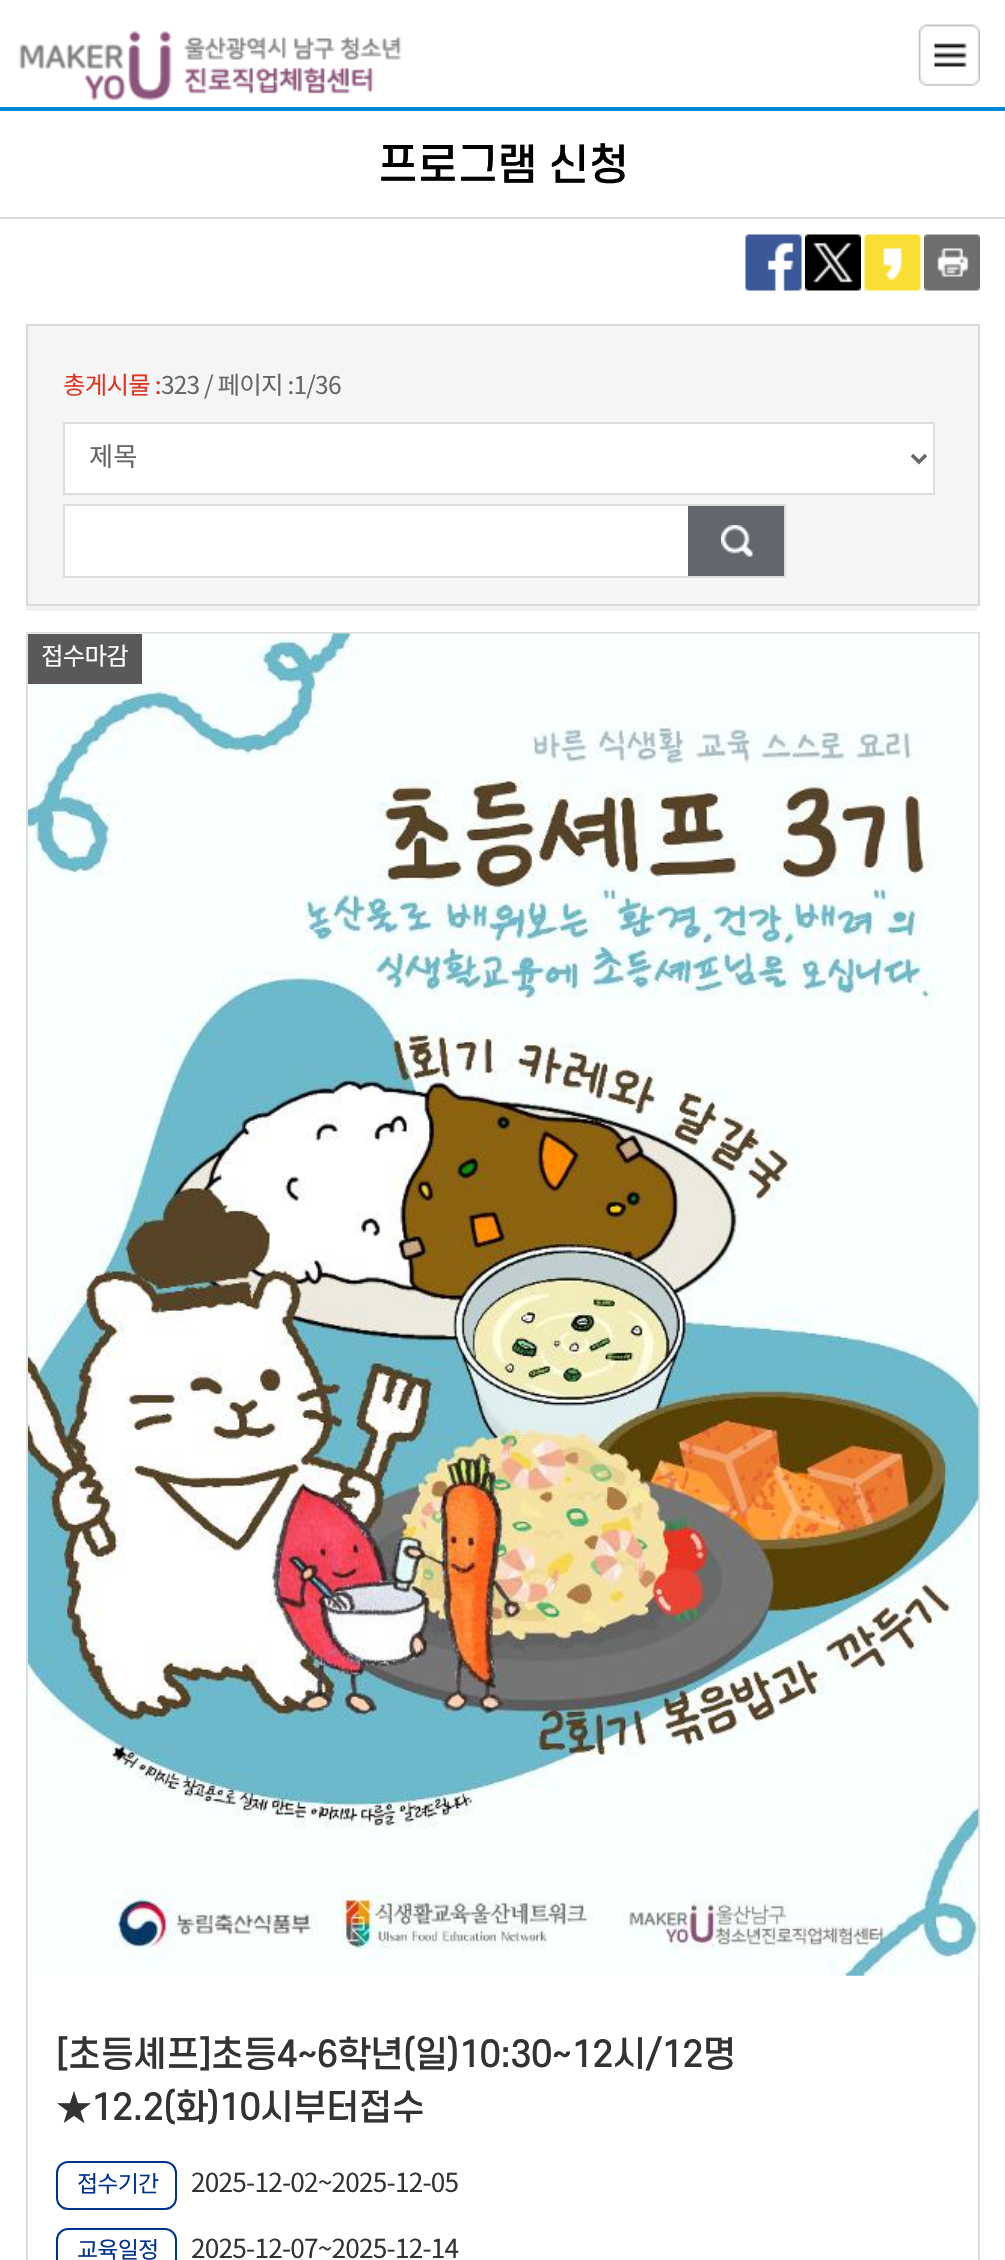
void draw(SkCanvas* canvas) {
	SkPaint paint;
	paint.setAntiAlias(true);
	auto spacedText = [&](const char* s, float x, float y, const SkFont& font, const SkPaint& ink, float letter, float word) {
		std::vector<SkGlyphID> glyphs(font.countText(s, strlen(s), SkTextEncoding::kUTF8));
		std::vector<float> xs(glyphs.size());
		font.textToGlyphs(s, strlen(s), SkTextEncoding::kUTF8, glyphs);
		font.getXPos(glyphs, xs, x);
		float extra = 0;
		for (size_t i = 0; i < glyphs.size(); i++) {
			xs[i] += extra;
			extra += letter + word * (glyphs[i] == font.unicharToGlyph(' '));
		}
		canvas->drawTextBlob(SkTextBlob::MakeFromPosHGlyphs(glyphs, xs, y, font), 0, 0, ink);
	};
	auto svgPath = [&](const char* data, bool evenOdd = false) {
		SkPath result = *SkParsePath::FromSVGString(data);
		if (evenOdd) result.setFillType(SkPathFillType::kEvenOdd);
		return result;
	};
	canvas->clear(0xffffffff);
	canvas->drawImageRect(SkImages::DeferredFromEncodedData(SkData::MakeFromFileName("img1.png")), SkRect::MakeXYWH(19, 31, 383, 70), SkSamplingOptions());
	canvas->drawImageRect(SkImages::DeferredFromEncodedData(SkData::MakeFromFileName("img2.png")), SkRect::MakeXYWH(918, 24, 62, 62), SkSamplingOptions());
	paint.setColor(0xff008ad5);
	canvas->drawRect(SkRect::MakeXYWH(0, 107, 1005, 4), paint);
	paint.setColor(0xffdddddd);
	canvas->drawRect(SkRect::MakeXYWH(0, 217, 1005, 2), paint);
	SkFont f1(fontMgr->matchFamilyStyle("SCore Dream", SkFontStyle(500, SkFontStyle::kNormal_Width, SkFontStyle::kUpright_Slant)), 42);
	f1.setSubpixel(true);
	paint.setColor(0xff010101);
	spacedText("프로그램 신청", 378, 180, f1, paint, -0.5, 0);
	canvas->drawImageRect(SkImages::DeferredFromEncodedData(SkData::MakeFromFileName("img3.png")), SkRect::MakeXYWH(745, 234, 57, 57), SkSamplingOptions());
	canvas->drawImageRect(SkImages::DeferredFromEncodedData(SkData::MakeFromFileName("img4.png")), SkRect::MakeXYWH(805, 234, 56, 57), SkSamplingOptions());
	canvas->drawImageRect(SkImages::DeferredFromEncodedData(SkData::MakeFromFileName("img5.png")), SkRect::MakeXYWH(864, 234, 57, 57), SkSamplingOptions());
	canvas->drawImageRect(SkImages::DeferredFromEncodedData(SkData::MakeFromFileName("img6.png")), SkRect::MakeXYWH(924, 234, 56, 57), SkSamplingOptions());
	paint.setColor(0xfff5f5f6);
	canvas->drawRect(SkRect::MakeXYWH(27, 325, 952, 280), paint);
	paint.setStroke(true);
	paint.setStrokeWidth(2);
	paint.setColor(0xffd9d9d9);
	canvas->drawRect(SkRect::MakeXYWH(27, 325, 952, 280), paint);
	SkFont f2(fontMgr->matchFamilyStyle("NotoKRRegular", SkFontStyle::Normal()), 24.5);
	f2.setSubpixel(true);
	paint.setStroke(false);
	paint.setColor(0xffe03321);
	spacedText("총게시물 :", 63, 394, f2, paint, -0.8, 0);
	paint.setColor(0xff666666);
	spacedText("323 / 페이지 :1/36", 161, 394, f2, paint, -0.8, 0);
	paint.setColor(0xffffffff);
	canvas->drawRect(SkRect::MakeXYWH(64, 423, 870, 71), paint);
	paint.setStroke(true);
	paint.setColor(0xffdddddd);
	canvas->drawRect(SkRect::MakeXYWH(64, 423, 870, 71), paint);
	paint.setStrokeWidth(3.5);
	paint.setColor(0xff666666);
	canvas->drawPath(svgPath("M912 455L919 462L926 455"), paint);
	SkFont f3(fontMgr->matchFamilyStyle("NotoKRRegular", SkFontStyle::Normal()), 26.25);
	f3.setSubpixel(true);
	paint.setStroke(false);
	canvas->drawString("제목", 89, 466, f3, paint);
	paint.setColor(0xffffffff);
	canvas->drawRect(SkRect::MakeXYWH(65, 506, 623, 70), paint);
	paint.setStroke(true);
	paint.setStrokeWidth(2);
	paint.setColor(0xffdddddd);
	canvas->drawRect(SkRect::MakeXYWH(64, 505, 721, 72), paint);
	paint.setStroke(false);
	paint.setColor(0xff63676d);
	canvas->drawRect(SkRect::MakeXYWH(688, 506, 96, 70), paint);
	canvas->drawImageRect(SkImages::DeferredFromEncodedData(SkData::MakeFromFileName("img7.png")), SkRect::MakeXYWH(721, 525, 32, 32), SkSamplingOptions());
	paint.setColor(0xfff1f1f1);
	canvas->drawRect(SkRect::MakeXYWH(26, 606, 951, 5), paint);
	paint.setStroke(true);
	paint.setColor(0xffdddddd);
	canvas->drawRect(SkRect::MakeXYWH(27, 633, 952, 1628), paint);
	canvas->drawImageRect(SkImages::DeferredFromEncodedData(SkData::MakeFromFileName("img8.png")), SkRect::MakeXYWH(28, 633, 951, 1343), SkSamplingOptions());
	paint.setStroke(false);
	paint.setColor(0xff595959);
	canvas->drawRect(SkRect::MakeXYWH(28, 634, 114, 50), paint);
	paint.setColor(0xffffffff);
	spacedText("접수마감", 41, 665, f2, paint, -0.8, 0);
	SkFont f4(fontMgr->matchFamilyStyle("SCore Dream", SkFontStyle(500, SkFontStyle::kNormal_Width, SkFontStyle::kUpright_Slant)), 35);
	f4.setSubpixel(true);
	paint.setColor(0xff333333);
	spacedText("[초등셰프]초등4~6학년(일)10:30~12시/12명", 56, 2067, f4, paint, -0.8, 0);
	SkFont f5(fontMgr->matchFamilyStyle("WenQuanYi Zen Hei", SkFontStyle::Bold()), 35);
	f5.setSubpixel(true);
	spacedText("★", 56, 2120, f5, paint, -0.8, 0);
	spacedText("12.2(화)10시부터접수", 91, 2120, f4, paint, -0.8, 0);
	paint.setStroke(true);
	paint.setColor(0xff00328f);
	canvas->drawRoundRect(SkRect::MakeXYWH(57, 2162, 119, 47), 11, 11, paint);
	SkFont f6(fontMgr->matchFamilyStyle("NotoKRRegular", SkFontStyle::Normal()), 23);
	f6.setSubpixel(true);
	paint.setStroke(false);
	spacedText("접수기간", 77, 2192, f6, paint, -0.8, 0);
	paint.setColor(0xff333333);
	spacedText("2025-12-02~2025-12-05", 191, 2192, f3, paint, -0.8, 0);
	paint.setStroke(true);
	paint.setColor(0xff00328f);
	canvas->drawRoundRect(SkRect::MakeXYWH(57, 2229, 119, 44), 11, 11, paint);
	paint.setStroke(false);
	spacedText("교육일정", 77, 2258, f6, paint, -0.8, 0);
	paint.setColor(0xff333333);
	spacedText("2025-12-07~2025-12-14", 191, 2258, f3, paint, -0.8, 0);
}
